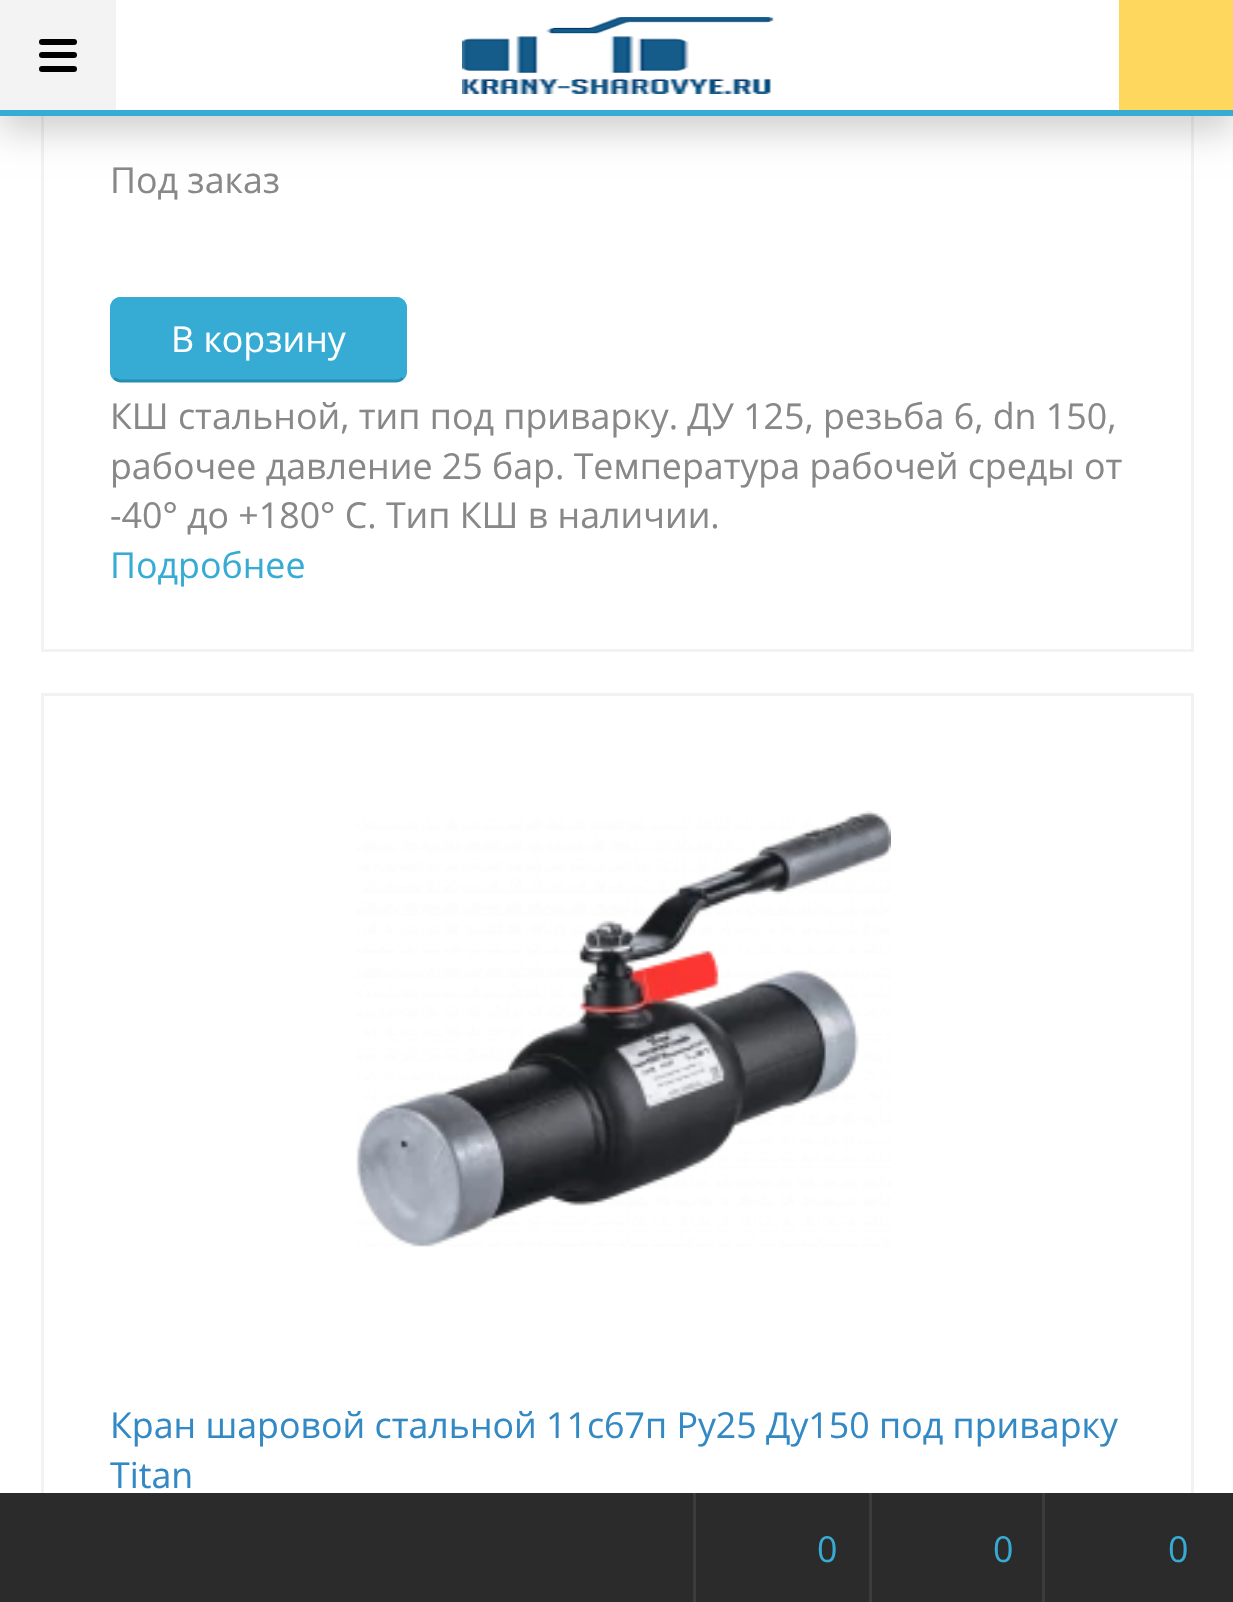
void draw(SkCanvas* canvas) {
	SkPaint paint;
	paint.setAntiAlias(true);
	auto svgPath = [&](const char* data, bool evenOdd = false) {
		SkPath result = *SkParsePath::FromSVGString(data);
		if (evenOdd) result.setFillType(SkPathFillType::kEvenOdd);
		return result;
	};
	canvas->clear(0xffffffff);
	paint.setStroke(true);
	paint.setStrokeWidth(3);
	paint.setColor(0xfff2f2f2);
	canvas->drawRect(SkRect::MakeXYWH(42.5, -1.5, 1150, 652), paint);
	paint.setStroke(false);
	paint.setColor(0x2e000000);
	paint.setMaskFilter(SkMaskFilter::MakeBlur(kNormal_SkBlurStyle, 16.5));
	canvas->drawRect(SkRect::MakeXYWH(0, 17, 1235, 115), paint);
	paint.setMaskFilter(nullptr);
	paint.setColor(0xffffffff);
	canvas->drawRect(SkRect::MakeXYWH(116, 0, 1003, 110), paint);
	paint.setColor(0xff36acd4);
	canvas->drawRect(SkRect::MakeXYWH(0, 110, 1233, 6), paint);
	paint.setColor(0xfff3f3f3);
	canvas->drawRect(SkRect::MakeXYWH(0, 0, 116, 110), paint);
	paint.setColor(0xff000000);
	canvas->drawRoundRect(SkRect::MakeXYWH(39, 39, 38, 6), 3, 3, paint);
	canvas->drawRoundRect(SkRect::MakeXYWH(39, 52, 38, 6), 3, 3, paint);
	canvas->drawRoundRect(SkRect::MakeXYWH(39, 66, 38, 6), 3, 3, paint);
	canvas->drawImageRect(SkImages::DeferredFromEncodedData(SkData::MakeFromFileName("img1.png")), SkRect::MakeXYWH(462, 17, 312, 77), SkSamplingOptions());
	paint.setColor(0xfffed75e);
	canvas->drawRect(SkRect::MakeXYWH(1119, 0, 114, 110), paint);
	SkFont f1(fontMgr->matchFamilyStyle("Open Sans", SkFontStyle::Normal()), 35.75);
	f1.setSubpixel(true);
	paint.setColor(0xff888888);
	canvas->drawString("Под заказ", 110, 193, f1, paint);
	paint.setColor(0xff36acd4);
	canvas->drawRoundRect(SkRect::MakeXYWH(110, 297, 297, 85), 11, 11, paint);
	paint.setStroke(true);
	paint.setStrokeWidth(2.8);
	paint.setColor(0xff268eb1);
	canvas->drawPath(svgPath("M403 378C401 380 398.5 381 396 381H121C118.5 381 116 380 114 378"), paint);
	paint.setColor(0xff36acd4);
	canvas->drawPath(svgPath("M114 378C112.5 376.5 111.5 374 111.5 371V308C111.5 305.5 112.5 303 114 301C116 299.5 118.5 298.5 121 298.5H396C398.5 298.5 401 299.5 403 301C404.5 303 405.5 305.5 405.5 308V371C405.5 374 404.5 376.5 403 378"), paint);
	paint.setStroke(false);
	paint.setColor(0xffffffff);
	canvas->drawString("В корзину", 171, 352, f1, paint);
	paint.setColor(0xff888888);
	canvas->drawString("КШ стальной, тип под приварку. ДУ 125, резьба 6, dn 150,", 110, 429, f1, paint);
	canvas->drawString("рабочее давление 25 бар. Температура рабочей среды от", 110, 479, f1, paint);
	canvas->drawString("-40° до +180° C. Тип КШ в наличии.", 110, 528, f1, paint);
	paint.setColor(0xff36acd4);
	canvas->drawString("Подробнее", 110, 578, f1, paint);
	paint.setStroke(true);
	paint.setStrokeWidth(3);
	paint.setColor(0xfff2f2f2);
	canvas->drawRect(SkRect::MakeXYWH(42.5, 694.5, 1150, 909), paint);
	canvas->drawImageRect(SkImages::DeferredFromEncodedData(SkData::MakeFromFileName("img2.png")), SkRect::MakeXYWH(356, 810, 535, 437), SkSamplingOptions());
	paint.setStroke(false);
	paint.setColor(0xff3389c4);
	canvas->drawString("Кран шаровой стальной 11с67п Ру25 Ду150 под приварку", 110, 1438, f1, paint);
	canvas->drawString("Titan", 110, 1488, f1, paint);
	paint.setColor(0xff2b2b2b);
	canvas->drawRect(SkRect::MakeXYWH(0, 1493, 1233, 109), paint);
	paint.setColor(0xff3c3c3c);
	canvas->drawRect(SkRect::MakeXYWH(693, 1493, 3, 109), paint);
	paint.setColor(0xff36acd4);
	canvas->drawString("0", 817, 1562, f1, paint);
	paint.setColor(0xff3c3c3c);
	canvas->drawRect(SkRect::MakeXYWH(869, 1493, 3, 109), paint);
	paint.setColor(0xff36acd4);
	canvas->drawString("0", 993, 1562, f1, paint);
	paint.setColor(0xff3c3c3c);
	canvas->drawRect(SkRect::MakeXYWH(1042, 1493, 3, 109), paint);
	paint.setColor(0xff36acd4);
	canvas->drawString("0", 1168, 1562, f1, paint);
}
